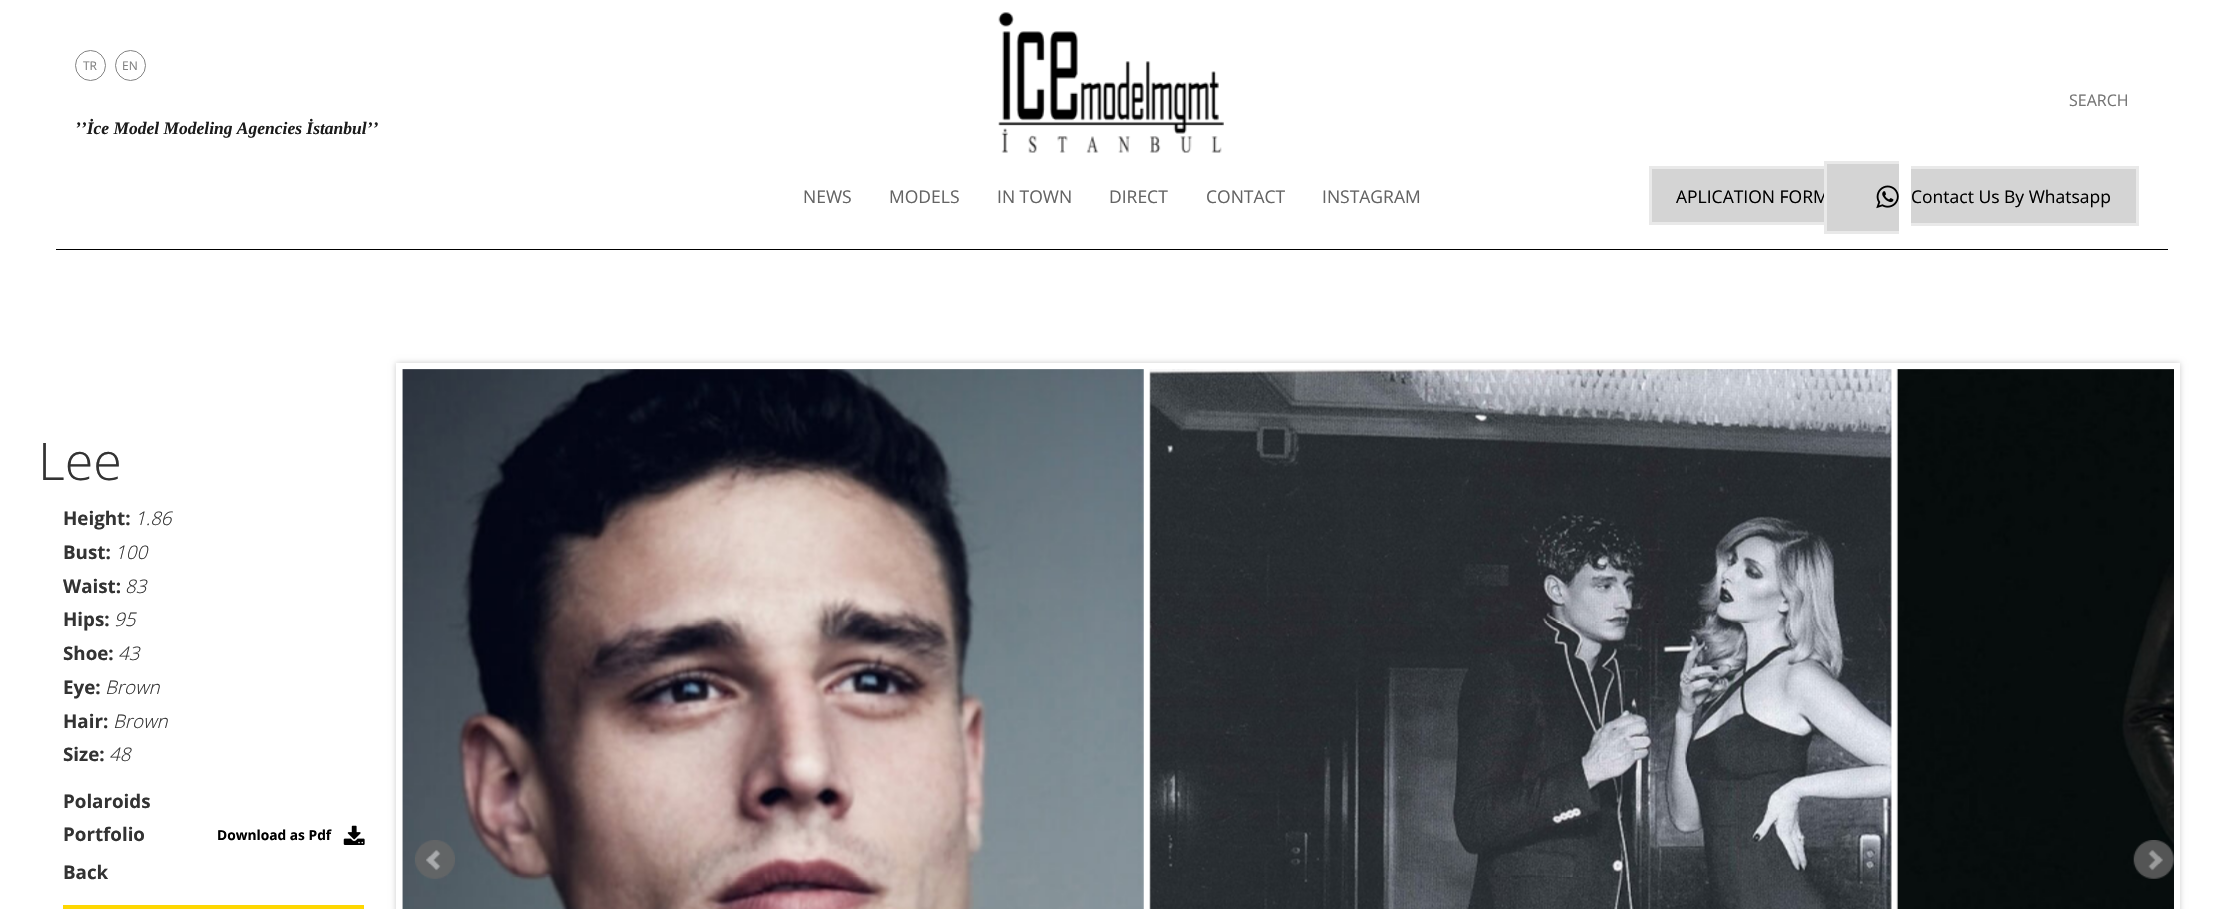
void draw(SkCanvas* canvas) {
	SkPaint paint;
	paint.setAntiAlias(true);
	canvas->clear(0xffffffff);
	paint.setStroke(true);
	paint.setStrokeWidth(1);
	paint.setColor(0xff828282);
	canvas->drawCircle(90.5, 65.5, 15, paint);
	SkFont f1(fontMgr->matchFamilyStyle("Open Sans", SkFontStyle::Normal()), 12);
	f1.setSubpixel(true);
	paint.setStroke(false);
	canvas->drawString("TR", 83, 70, f1, paint);
	paint.setStroke(true);
	canvas->drawCircle(130.5, 65.5, 15, paint);
	paint.setStroke(false);
	canvas->drawString("EN", 122, 70, f1, paint);
	SkFont f2(fontMgr->matchFamilyStyle("Liberation Serif", SkFontStyle::BoldItalic()), 17.5);
	f2.setSubpixel(true);
	paint.setColor(0xff1c1c1c);
	canvas->drawString("’’İce Model Modeling Agencies İstanbul’’", 75, 134, f2, paint);
	canvas->drawImageRect(SkImages::DeferredFromEncodedData(SkData::MakeFromFileName("img1.png")), SkRect::MakeXYWH(998, 12, 226, 141), SkSamplingOptions());
	SkFont f3(fontMgr->matchFamilyStyle("Open Sans", SkFontStyle::Normal()), 16);
	f3.setSubpixel(true);
	paint.setColor(0xff757575);
	canvas->drawString("SEARCH", 2069, 106, f3, paint);
	SkFont f4(fontMgr->matchFamilyStyle("Open Sans", SkFontStyle::Normal()), 17.5);
	f4.setSubpixel(true);
	paint.setColor(0xff646464);
	canvas->drawString("NEWS", 803, 203, f4, paint);
	canvas->drawString("MODELS", 889, 203, f4, paint);
	canvas->drawString("IN TOWN", 997, 203, f4, paint);
	canvas->drawString("DIRECT", 1109, 203, f4, paint);
	canvas->drawString("CONTACT", 1206, 203, f4, paint);
	canvas->drawString("INSTAGRAM", 1322, 203, f4, paint);
	paint.setColor(0xffd4d4d4);
	canvas->drawRect(SkRect::MakeXYWH(1652, 169, 172, 53), paint);
	paint.setStroke(true);
	paint.setStrokeWidth(3);
	paint.setColor(0xffe9e9e9);
	canvas->drawRect(SkRect::MakeXYWH(1650.5, 167.5, 204, 56), paint);
	paint.setStroke(false);
	paint.setColor(0xff000000);
	canvas->drawString("APLICATION FORM", 1676, 203, f4, paint);
	paint.setColor(0xffd4d4d4);
	canvas->drawRect(SkRect::MakeXYWH(1827, 164, 72, 67), paint);
	paint.setColor(0xffe9e9e9);
	canvas->drawRect(SkRect::MakeXYWH(1824, 161, 75, 3), paint);
	canvas->drawRect(SkRect::MakeXYWH(1824, 231, 75, 3), paint);
	canvas->drawRect(SkRect::MakeXYWH(1824, 161, 3, 73), paint);
	paint.setColor(0xffd4d4d4);
	canvas->drawRect(SkRect::MakeXYWH(1911, 169, 225, 54), paint);
	paint.setColor(0xffe9e9e9);
	canvas->drawRect(SkRect::MakeXYWH(1911, 166, 228, 3), paint);
	canvas->drawRect(SkRect::MakeXYWH(1911, 223, 113, 3), paint);
	canvas->drawRect(SkRect::MakeXYWH(2136, 166, 3, 59), paint);
	canvas->drawRect(SkRect::MakeXYWH(2024, 223, 115, 3), paint);
	canvas->drawImageRect(SkImages::DeferredFromEncodedData(SkData::MakeFromFileName("img2.png")), SkRect::MakeXYWH(1876, 185, 23, 24), SkSamplingOptions());
	paint.setColor(0xff000000);
	canvas->drawString("Contact Us By Whatsapp", 1911, 203, f4, paint);
	canvas->drawRect(SkRect::MakeXYWH(56, 249, 2112, 1), paint);
	SkFont f5(fontMgr->matchFamilyStyle("Open Sans", SkFontStyle(300, SkFontStyle::kNormal_Width, SkFontStyle::kUpright_Slant)), 52);
	f5.setSubpixel(true);
	paint.setColor(0xff333333);
	canvas->drawString("Lee", 38, 480, f5, paint);
	SkFont f6(fontMgr->matchFamilyStyle("Open Sans", SkFontStyle::Bold()), 18.75);
	f6.setSubpixel(true);
	canvas->drawString("Height:", 63, 525, f6, paint);
	SkFont f7(fontMgr->matchFamilyStyle("Open Sans", SkFontStyle(300, SkFontStyle::kNormal_Width, SkFontStyle::kItalic_Slant)), 18.75);
	f7.setSubpixel(true);
	canvas->drawString("1.86", 135, 525, f7, paint);
	canvas->drawString("Bust:", 63, 559, f6, paint);
	canvas->drawString("100", 115, 559, f7, paint);
	canvas->drawString("Waist:", 63, 593, f6, paint);
	canvas->drawString("83", 125, 593, f7, paint);
	canvas->drawString("Hips:", 63, 626, f6, paint);
	canvas->drawString("95", 114, 626, f7, paint);
	canvas->drawString("Shoe:", 63, 660, f6, paint);
	canvas->drawString("43", 118, 660, f7, paint);
	canvas->drawString("Eye:", 63, 694, f6, paint);
	canvas->drawString("Brown", 105, 694, f7, paint);
	canvas->drawString("Hair:", 63, 728, f6, paint);
	canvas->drawString("Brown", 113, 728, f7, paint);
	canvas->drawString("Size:", 63, 761, f6, paint);
	canvas->drawString("48", 109, 761, f7, paint);
	canvas->drawString("Polaroids", 63, 808, f6, paint);
	canvas->drawString("Portfolio", 63, 841, f6, paint);
	SkFont f8(fontMgr->matchFamilyStyle("Open Sans", SkFontStyle::Bold()), 13.75);
	f8.setSubpixel(true);
	paint.setColor(0xff000000);
	canvas->drawString("Download as Pdf", 217, 840, f8, paint);
	canvas->drawImageRect(SkImages::DeferredFromEncodedData(SkData::MakeFromFileName("img3.png")), SkRect::MakeXYWH(343, 825, 22, 20), SkSamplingOptions());
	paint.setColor(0xff333333);
	canvas->drawString("Back", 63, 879, f6, paint);
	paint.setColor(0xfffed700);
	canvas->drawRect(SkRect::MakeXYWH(63, 905, 301, 4), paint);
	paint.setColor(0xffcccccc);
	paint.setMaskFilter(SkMaskFilter::MakeBlur(kNormal_SkBlurStyle, 3));
	canvas->drawRect(SkRect::MakeXYWH(396, 363, 1784, 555), paint);
	paint.setMaskFilter(nullptr);
	paint.setColor(0xffffffff);
	canvas->drawRect(SkRect::MakeXYWH(396, 363, 1784, 546), paint);
	canvas->drawImageRect(SkImages::DeferredFromEncodedData(SkData::MakeFromFileName("img4.png")), SkRect::MakeXYWH(402, 369, 742, 540), SkSamplingOptions());
	canvas->drawImageRect(SkImages::DeferredFromEncodedData(SkData::MakeFromFileName("img5.png")), SkRect::MakeXYWH(1149, 369, 743, 540), SkSamplingOptions());
	canvas->drawImageRect(SkImages::DeferredFromEncodedData(SkData::MakeFromFileName("img6.png")), SkRect::MakeXYWH(1896, 369, 278, 540), SkSamplingOptions());
	canvas->drawImageRect(SkImages::DeferredFromEncodedData(SkData::MakeFromFileName("img7.png")), SkRect::MakeXYWH(415, 840, 40, 39), SkSamplingOptions());
	canvas->drawImageRect(SkImages::DeferredFromEncodedData(SkData::MakeFromFileName("img8.png")), SkRect::MakeXYWH(2133, 840, 41, 39), SkSamplingOptions());
}
